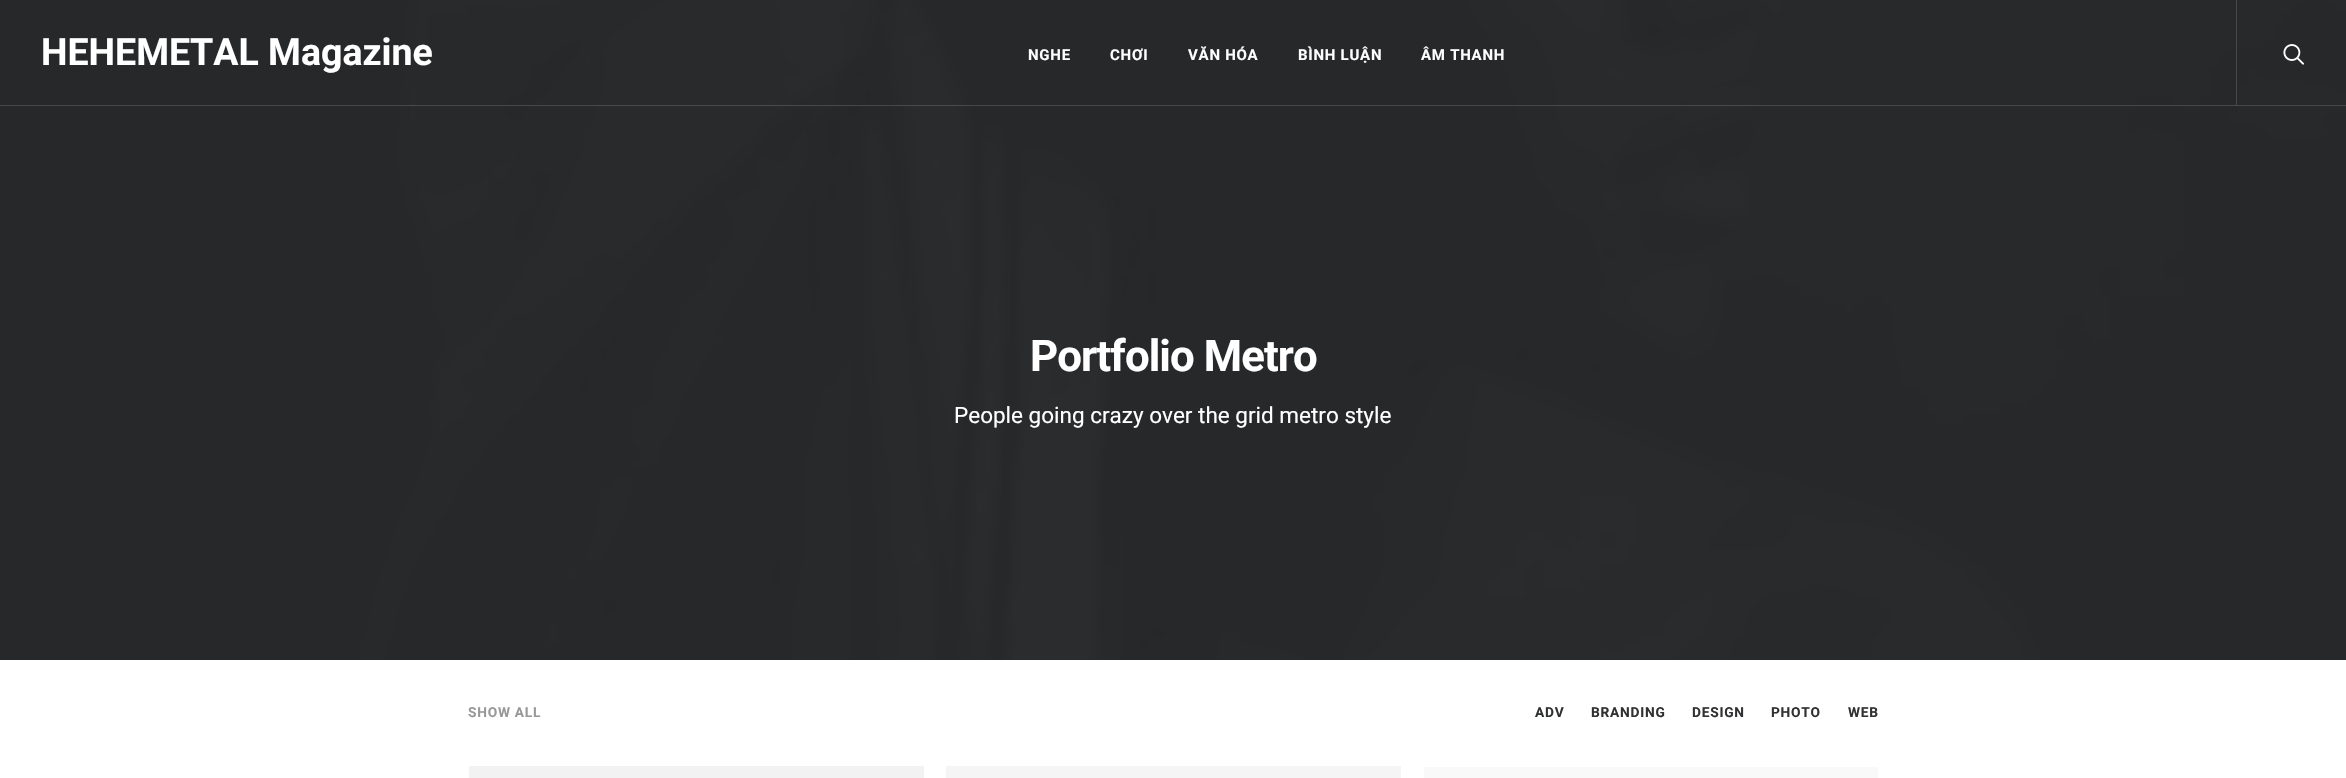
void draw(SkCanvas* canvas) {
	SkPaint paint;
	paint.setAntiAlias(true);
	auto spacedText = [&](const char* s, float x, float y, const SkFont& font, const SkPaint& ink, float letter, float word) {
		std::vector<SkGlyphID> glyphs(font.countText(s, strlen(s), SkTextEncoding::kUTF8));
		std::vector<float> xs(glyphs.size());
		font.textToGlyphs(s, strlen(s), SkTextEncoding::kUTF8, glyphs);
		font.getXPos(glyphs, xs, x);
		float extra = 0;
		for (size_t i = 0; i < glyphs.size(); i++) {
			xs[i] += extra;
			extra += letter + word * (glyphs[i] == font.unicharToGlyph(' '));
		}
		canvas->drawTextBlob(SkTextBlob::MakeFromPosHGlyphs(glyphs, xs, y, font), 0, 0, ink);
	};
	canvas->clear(0xffffffff);
	canvas->drawImageRect(SkImages::DeferredFromEncodedData(SkData::MakeFromFileName("img2.png")), SkRect::MakeXYWH(0, 0, 2346, 660), SkSamplingOptions());
	paint.setColor(0x26ffffff);
	canvas->drawRect(SkRect::MakeXYWH(0, 105, 2346, 1), paint);
	SkFont f1(fontMgr->matchFamilyStyle("Roboto", SkFontStyle::Bold()), 37.5);
	f1.setSubpixel(true);
	paint.setColor(0xffffffff);
	canvas->drawString("HEHEMETAL Magazine", 41, 65, f1, paint);
	SkFont f2(fontMgr->matchFamilyStyle("Roboto", SkFontStyle::Bold()), 15);
	f2.setSubpixel(true);
	spacedText("NGHE", 1028, 60, f2, paint, 0.75, 0);
	spacedText("CHƠI", 1110, 60, f2, paint, 0.75, 0);
	spacedText("VĂN HÓA", 1188, 60, f2, paint, 0.75, 0);
	spacedText("BÌNH LUẬN", 1298, 60, f2, paint, 0.75, 0);
	spacedText("ÂM THANH", 1421, 60, f2, paint, 0.75, 0);
	paint.setColor(0xff47494a);
	canvas->drawRect(SkRect::MakeXYWH(2236, 0, 1, 105), paint);
	canvas->drawImageRect(SkImages::DeferredFromEncodedData(SkData::MakeFromFileName("img1.png")), SkRect::MakeXYWH(2283, 44, 22, 21), SkSamplingOptions());
	SkFont f3(fontMgr->matchFamilyStyle("Roboto", SkFontStyle::Bold()), 43.75);
	f3.setSubpixel(true);
	paint.setColor(0xffffffff);
	spacedText("Portfolio Metro", 1030, 371, f3, paint, -0.9, 0);
	SkFont f4(fontMgr->matchFamilyStyle("Roboto", SkFontStyle::Normal()), 22.5);
	f4.setSubpixel(true);
	canvas->drawString("People going crazy over the grid metro style", 954, 423, f4, paint);
	SkFont f5(fontMgr->matchFamilyStyle("Roboto", SkFontStyle::Bold()), 13.75);
	f5.setSubpixel(true);
	paint.setColor(0xff989899);
	spacedText("SHOW ALL", 468, 717, f5, paint, 0.75, 0);
	paint.setColor(0xff303133);
	spacedText("ADV", 1535, 717, f5, paint, 0.75, 0);
	spacedText("BRANDING", 1591, 717, f5, paint, 0.75, 0);
	spacedText("DESIGN", 1692, 717, f5, paint, 0.75, 0);
	spacedText("PHOTO", 1771, 717, f5, paint, 0.75, 0);
	spacedText("WEB", 1848, 717, f5, paint, 0.75, 0);
	paint.setColor(0xfff2f2f2);
	canvas->drawRect(SkRect::MakeXYWH(469, 766, 455, 12), paint);
	paint.setColor(0xfff5f5f5);
	canvas->drawRect(SkRect::MakeXYWH(946, 766, 455, 12), paint);
	paint.setColor(0xfff9f9f9);
	canvas->drawRect(SkRect::MakeXYWH(1424, 767, 454, 11), paint);
}
